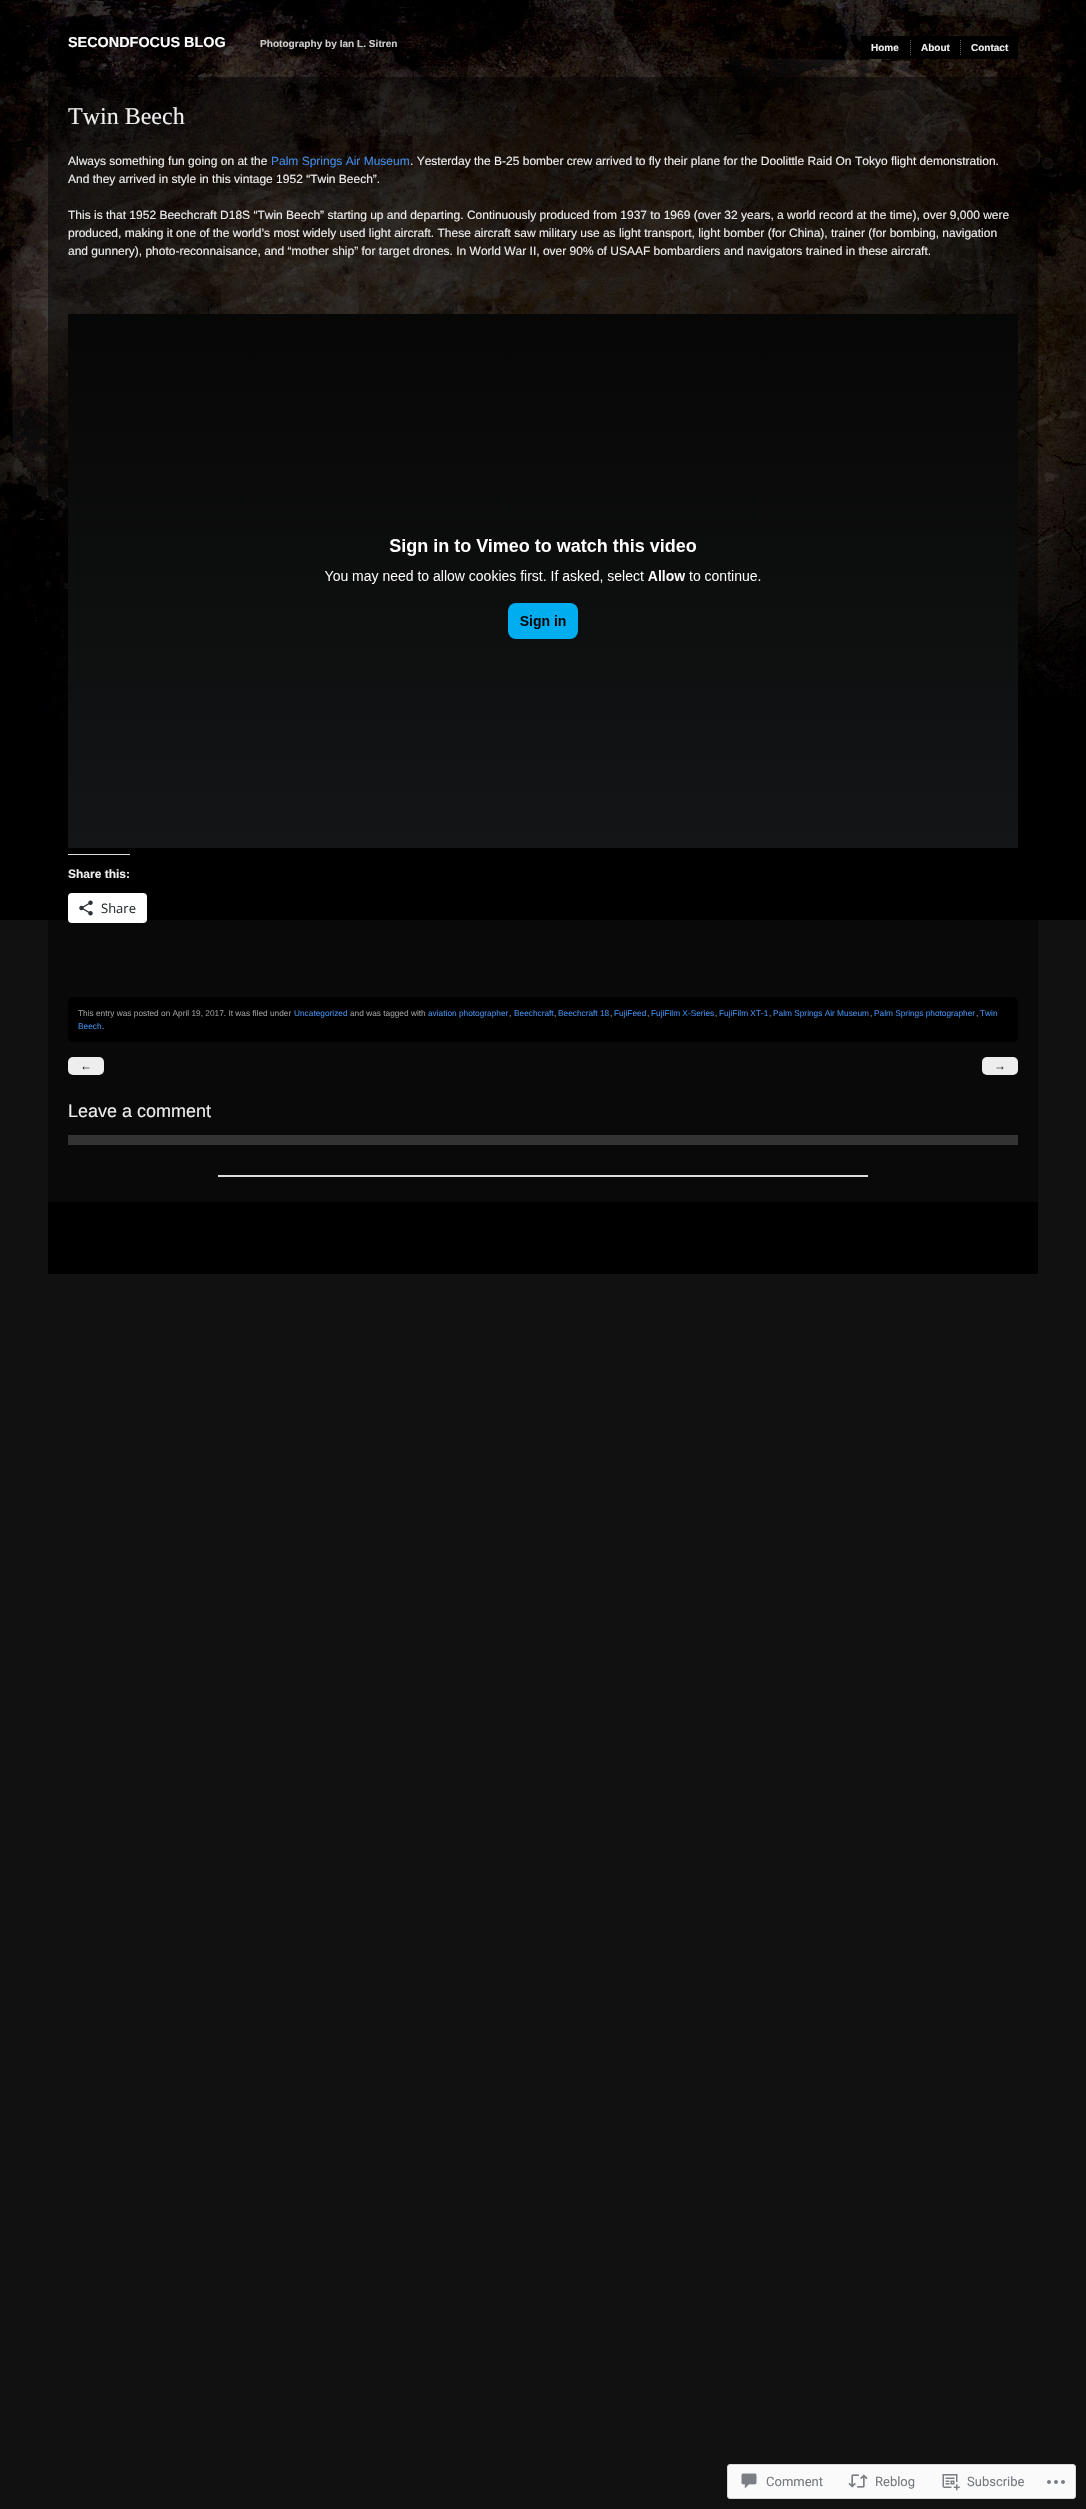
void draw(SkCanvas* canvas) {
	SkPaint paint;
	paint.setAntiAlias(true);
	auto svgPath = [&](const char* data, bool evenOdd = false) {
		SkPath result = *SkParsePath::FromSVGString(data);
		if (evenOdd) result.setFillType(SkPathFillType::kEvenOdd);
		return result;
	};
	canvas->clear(0xff111111);
	canvas->drawImageRect(SkImages::DeferredFromEncodedData(SkData::MakeFromFileName("img1.png")), SkRect::MakeXYWH(0, 0, 1086, 920), SkSamplingOptions());
	SkFont f1(fontMgr->matchFamilyStyle("Liberation Sans", SkFontStyle::Bold()), 14.4);
	f1.setSubpixel(true);
	paint.setColor(0xffffffff);
	canvas->drawString("SECONDFOCUS BLOG", 68, 47, f1, paint);
	SkFont f2(fontMgr->matchFamilyStyle("Liberation Sans", SkFontStyle::Bold()), 10.1);
	f2.setSubpixel(true);
	paint.setColor(0xffcccccc);
	canvas->drawString("Photography by Ian L. Sitren", 260, 47, f2, paint);
	paint.setColor(0xff000000);
	canvas->drawRect(SkRect::MakeXYWH(861, 36, 157, 23), paint);
	paint.setStroke(true);
	paint.setStrokeWidth(1);
	paint.setColor(0xff666666);
	paint.setPathEffect(SkDashPathEffect::Make({{1, 1}}, 0));
	canvas->drawPath(svgPath("M910.5 40V55"), paint);
	paint.setPathEffect(nullptr);
	SkFont f3(fontMgr->matchFamilyStyle("Liberation Sans", SkFontStyle::Bold()), 10);
	f3.setSubpixel(true);
	paint.setStroke(false);
	paint.setColor(0xffeeeeee);
	canvas->drawString("Home", 871, 51, f3, paint);
	paint.setStroke(true);
	paint.setColor(0xff666666);
	paint.setPathEffect(SkDashPathEffect::Make({{1, 1}}, 0));
	canvas->drawPath(svgPath("M960.5 40V55"), paint);
	paint.setPathEffect(nullptr);
	paint.setStroke(false);
	paint.setColor(0xffeeeeee);
	canvas->drawString("About", 921, 51, f3, paint);
	canvas->drawString("Contact", 971, 51, f3, paint);
	paint.setColor(0x80000000);
	canvas->drawRect(SkRect::MakeXYWH(48, 77, 990, 1125), paint);
	SkFont f4(fontMgr->matchFamilyStyle("Liberation Serif", SkFontStyle::Normal()), 24);
	f4.setSubpixel(true);
	paint.setColor(0xffeeeeee);
	canvas->drawString("Twin Beech", 68, 124, f4, paint);
	SkFont f5(fontMgr->matchFamilyStyle("Liberation Sans", SkFontStyle::Normal()), 12);
	f5.setSubpixel(true);
	canvas->drawString("Always something fun going on at the", 68, 165, f5, paint);
	paint.setColor(0xff428ce7);
	canvas->drawString("Palm Springs Air Museum", 271, 165, f5, paint);
	paint.setColor(0xffeeeeee);
	canvas->drawString(". Yesterday the B-25 bomber crew arrived to fly their plane for the Doolittle Raid On Tokyo flight demonstration.", 410, 165, f5, paint);
	canvas->drawString("And they arrived in style in this vintage 1952 “Twin Beech”.", 68, 183, f5, paint);
	canvas->drawString("This is that 1952 Beechcraft D18S “Twin Beech” starting up and departing. Continuously produced from 1937 to 1969 (over 32 years, a world record at the time), over 9,000 were", 68, 219, f5, paint);
	canvas->drawString("produced, making it one of the world’s most widely used light aircraft. These aircraft saw military use as light transport, light bomber (for China), trainer (for bombing, navigation", 68, 237, f5, paint);
	canvas->drawString("and gunnery), photo-reconnaisance, and “mother ship” for target drones. In World War II, over 90% of USAAF bombardiers and navigators trained in these aircraft.", 68, 255, f5, paint);
	canvas->drawImageRect(SkImages::DeferredFromEncodedData(SkData::MakeFromFileName("img2.png")), SkRect::MakeXYWH(68, 314, 950, 534), SkSamplingOptions());
	paint.setColor(0xffdcdcde);
	canvas->drawRect(SkRect::MakeXYWH(68, 854, 62, 1), paint);
	SkFont f6(fontMgr->matchFamilyStyle("Liberation Sans", SkFontStyle::Bold()), 12);
	f6.setSubpixel(true);
	paint.setColor(0xffeeeeee);
	canvas->drawString("Share this:", 68, 878, f6, paint);
	paint.setColor(0xffffffff);
	canvas->drawRoundRect(SkRect::MakeXYWH(68, 893, 79, 30), 4, 4, paint);
	canvas->drawImageRect(SkImages::DeferredFromEncodedData(SkData::MakeFromFileName("img3.png")), SkRect::MakeXYWH(79, 900, 14, 16), SkSamplingOptions());
	SkFont f7(fontMgr->matchFamilyStyle("Open Sans", SkFontStyle::Normal()), 13);
	f7.setSubpixel(true);
	paint.setColor(0xff2c3338);
	canvas->drawString("Share", 101, 913, f7, paint);
	paint.setColor(0xff000000);
	canvas->drawRoundRect(SkRect::MakeXYWH(68, 997, 950, 45), 5, 5, paint);
	SkFont f8(fontMgr->matchFamilyStyle("Liberation Sans", SkFontStyle::Normal()), 8.3);
	f8.setSubpixel(true);
	paint.setColor(0xff999999);
	canvas->drawString("This entry was posted on April 19, 2017. It was filed under", 78, 1016, f8, paint);
	paint.setColor(0xff428ce7);
	canvas->drawString("Uncategorized", 294, 1016, f8, paint);
	paint.setColor(0xff999999);
	canvas->drawString("and was tagged with", 350, 1016, f8, paint);
	paint.setColor(0xff428ce7);
	canvas->drawString("aviation photographer", 428, 1016, f8, paint);
	canvas->drawString("Beechcraft", 514, 1016, f8, paint);
	canvas->drawString("Beechcraft 18", 558, 1016, f8, paint);
	canvas->drawString("FujiFeed", 614, 1016, f8, paint);
	canvas->drawString("FujiFilm X-Series", 651, 1016, f8, paint);
	canvas->drawString("FujiFilm XT-1", 719, 1016, f8, paint);
	canvas->drawString("Palm Springs Air Museum", 773, 1016, f8, paint);
	canvas->drawString("Palm Springs photographer", 874, 1016, f8, paint);
	canvas->drawString("Twin", 980, 1016, f8, paint);
	paint.setColor(0xff999999);
	canvas->drawString(",", 509, 1016, f8, paint);
	canvas->drawString(",", 554, 1016, f8, paint);
	canvas->drawString(",", 610, 1016, f8, paint);
	canvas->drawString(",", 647, 1016, f8, paint);
	canvas->drawString(",", 715, 1016, f8, paint);
	canvas->drawString(",", 769, 1016, f8, paint);
	canvas->drawString(",", 870, 1016, f8, paint);
	canvas->drawString(",", 976, 1016, f8, paint);
	paint.setColor(0xff428ce7);
	canvas->drawString("Beech", 78, 1029, f8, paint);
	paint.setColor(0xff999999);
	canvas->drawString(".", 102, 1029, f8, paint);
	paint.setColor(0xffeeeeee);
	canvas->drawRoundRect(SkRect::MakeXYWH(68, 1057, 36, 18), 5, 5, paint);
	paint.setColor(0xff222222);
	canvas->drawString("←", 80, 1070, f5, paint);
	paint.setColor(0xffeeeeee);
	canvas->drawRoundRect(SkRect::MakeXYWH(982, 1057, 36, 18), 5, 5, paint);
	paint.setColor(0xff222222);
	canvas->drawString("→", 994, 1070, f5, paint);
	SkFont f9(fontMgr->matchFamilyStyle("Liberation Sans", SkFontStyle::Normal()), 18);
	f9.setSubpixel(true);
	paint.setColor(0xffeeeeee);
	canvas->drawString("Leave a comment", 68, 1117, f9, paint);
	paint.setColor(0xff333333);
	canvas->drawRect(SkRect::MakeXYWH(68, 1135, 950, 10), paint);
	paint.setColor(0xffdcdcde);
	canvas->drawRect(SkRect::MakeXYWH(218, 1175, 650, 2), paint);
	paint.setColor(0xff000000);
	canvas->drawRect(SkRect::MakeXYWH(48, 1202, 990, 72), paint);
	paint.setColor(0xfffafafa);
	canvas->drawRoundRect(SkRect::MakeXYWH(727.5, 2464.5, 348, 34), 2.5, 2.5, paint);
	paint.setStroke(true);
	paint.setColor(0xffd8d8da);
	canvas->drawRoundRect(SkRect::MakeXYWH(727.5, 2464.5, 348, 34), 2.5, 2.5, paint);
	canvas->drawImageRect(SkImages::DeferredFromEncodedData(SkData::MakeFromFileName("img4.png")), SkRect::MakeXYWH(741, 2473, 16, 16), SkSamplingOptions());
	SkFont f10(fontMgr->matchFamilyStyle("Roboto", SkFontStyle::Normal()), 13);
	f10.setSubpixel(true);
	paint.setStroke(false);
	paint.setColor(0xff767a80);
	canvas->drawString("Comment", 766, 2486, f10, paint);
	canvas->drawImageRect(SkImages::DeferredFromEncodedData(SkData::MakeFromFileName("img5.png")), SkRect::MakeXYWH(848, 2474, 20, 14), SkSamplingOptions());
	canvas->drawString("Reblog", 875, 2486, f10, paint);
	canvas->drawImageRect(SkImages::DeferredFromEncodedData(SkData::MakeFromFileName("img6.png")), SkRect::MakeXYWH(942, 2474, 18, 17), SkSamplingOptions());
	canvas->drawString("Subscribe", 967, 2486, f10, paint);
	canvas->drawImageRect(SkImages::DeferredFromEncodedData(SkData::MakeFromFileName("img7.png")), SkRect::MakeXYWH(1047, 2480, 18, 4), SkSamplingOptions());
}
